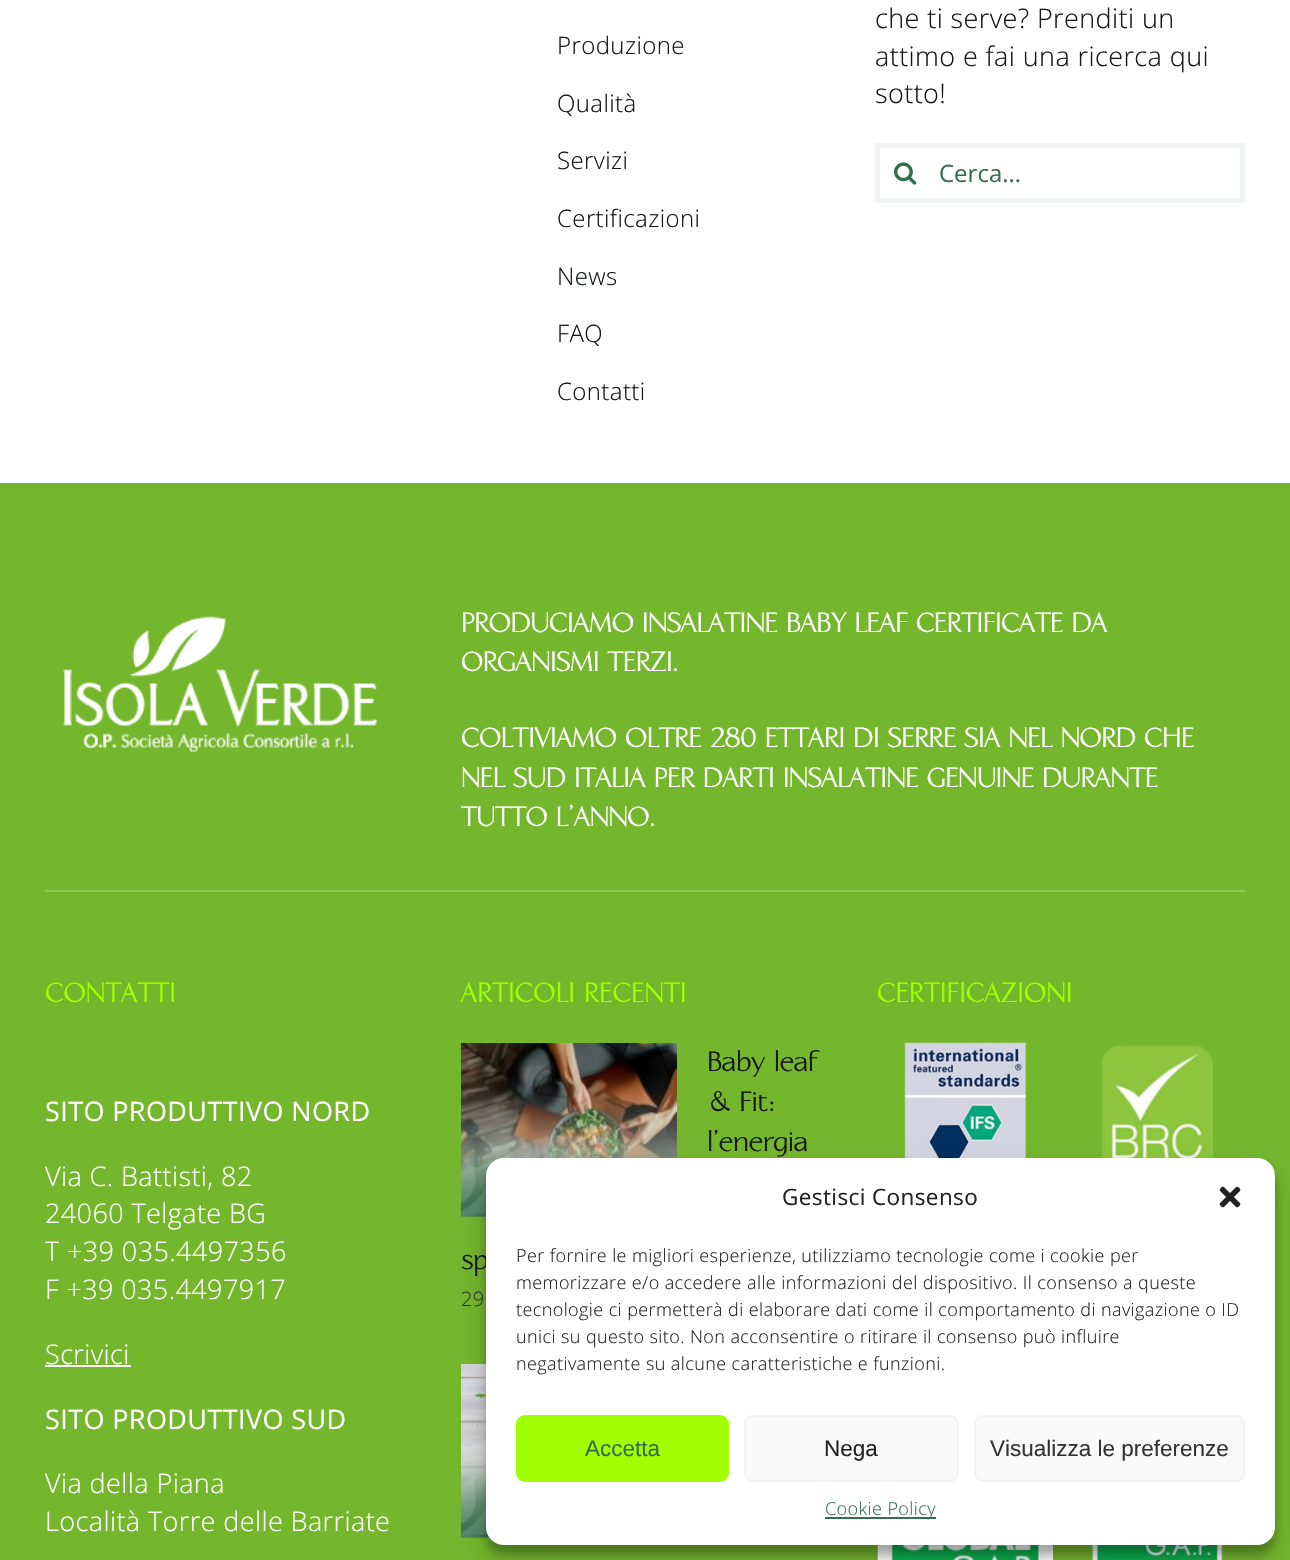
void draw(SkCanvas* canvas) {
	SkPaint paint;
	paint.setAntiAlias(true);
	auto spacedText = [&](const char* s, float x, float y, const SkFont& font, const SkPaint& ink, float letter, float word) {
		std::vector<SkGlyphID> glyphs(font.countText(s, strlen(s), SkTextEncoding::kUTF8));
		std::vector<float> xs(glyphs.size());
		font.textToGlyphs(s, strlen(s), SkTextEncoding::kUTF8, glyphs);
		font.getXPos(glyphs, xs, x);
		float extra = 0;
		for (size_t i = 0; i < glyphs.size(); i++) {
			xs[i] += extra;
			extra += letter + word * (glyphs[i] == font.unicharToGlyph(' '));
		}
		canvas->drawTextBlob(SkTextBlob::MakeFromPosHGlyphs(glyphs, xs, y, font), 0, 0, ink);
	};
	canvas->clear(0xffffffff);
	SkFont f1(fontMgr->matchFamilyStyle("Open Sans", SkFontStyle(300, SkFontStyle::kNormal_Width, SkFontStyle::kUpright_Slant)), 24);
	f1.setSubpixel(true);
	paint.setColor(0xff141617);
	spacedText("Produzione", 557, 54, f1, paint, 0.4, 0);
	spacedText("Qualità", 557, 112, f1, paint, 0.4, 0);
	spacedText("Servizi", 557, 169, f1, paint, 0.4, 0);
	spacedText("Certificazioni", 557, 227, f1, paint, 0.4, 0);
	spacedText("News", 557, 285, f1, paint, 0.4, 0);
	spacedText("FAQ", 557, 342, f1, paint, 0.4, 0);
	spacedText("Contatti", 557, 400, f1, paint, 0.4, 0);
	SkFont f2(fontMgr->matchFamilyStyle("Open Sans", SkFontStyle(300, SkFontStyle::kNormal_Width, SkFontStyle::kUpright_Slant)), 27);
	f2.setSubpixel(true);
	spacedText("che ti serve? Prenditi un", 875, 28, f2, paint, 0.4, 0);
	spacedText("attimo e fai una ricerca qui", 875, 66, f2, paint, 0.4, 0);
	spacedText("sotto!", 875, 103, f2, paint, 0.4, 0);
	paint.setStroke(true);
	paint.setStrokeWidth(5);
	paint.setColor(0xfff2f3f5);
	canvas->drawRect(SkRect::MakeXYWH(877.5, 145.5, 365, 55), paint);
	canvas->drawImageRect(SkImages::DeferredFromEncodedData(SkData::MakeFromFileName("img1.png")), SkRect::MakeXYWH(894, 162, 23, 23), SkSamplingOptions());
	SkFont f3(fontMgr->matchFamilyStyle("Open Sans", SkFontStyle::Normal()), 24);
	f3.setSubpixel(true);
	paint.setStroke(false);
	paint.setColor(0xff336f4f);
	canvas->drawString("Cerca...", 939, 182, f3, paint);
	paint.setColor(0xff74b72d);
	canvas->drawRect(SkRect::MakeXYWH(0, 483, 1290, 1077), paint);
	canvas->drawImageRect(SkImages::DeferredFromEncodedData(SkData::MakeFromFileName("img2.png")), SkRect::MakeXYWH(63, 616, 314, 136), SkSamplingOptions());
	SkFont f4(fontMgr->matchFamilyStyle("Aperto", SkFontStyle::Normal()), 36);
	f4.setSubpixel(true);
	paint.setColor(0xffffffff);
	spacedText("PRODUCIAMO INSALATINE BABY LEAF CERTIFICATE DA", 461, 632, f4, paint, -0.55, 0);
	spacedText("ORGANISMI TERZI.", 461, 671, f4, paint, -0.55, 0);
	spacedText("COLTIVIAMO OLTRE 280 ETTARI DI SERRE SIA NEL NORD CHE", 461, 747, f4, paint, -0.55, 0);
	spacedText("NEL SUD ITALIA PER DARTI INSALATINE GENUINE DURANTE", 461, 787, f4, paint, -0.55, 0);
	spacedText("TUTTO L’ANNO.", 461, 826, f4, paint, -0.55, 0);
	paint.setColor(0xff90c557);
	canvas->drawRect(SkRect::MakeXYWH(45, 890, 1200, 2), paint);
	paint.setColor(0xffa1ff00);
	canvas->drawString("CONTATTI", 45, 1002, f4, paint);
	SkFont f5(fontMgr->matchFamilyStyle("Open Sans", SkFontStyle::Normal()), 27);
	f5.setSubpixel(true);
	paint.setColor(0xffffffff);
	spacedText("SITO PRODUTTIVO NORD", 45, 1121, f5, paint, 0.4, 0);
	spacedText("Via C. Battisti, 82", 45, 1186, f2, paint, 0.4, 0);
	spacedText("24060 Telgate BG", 45, 1223, f2, paint, 0.4, 0);
	spacedText("T +39 035.4497356", 45, 1261, f2, paint, 0.4, 0);
	spacedText("F +39 035.4497917", 45, 1299, f2, paint, 0.4, 0);
	spacedText("Scrivici", 45, 1364, f2, paint, 0.4, 0);
	canvas->drawRect(SkRect::MakeXYWH(45, 1365, 86, 2), paint);
	spacedText("SITO PRODUTTIVO SUD", 45, 1429, f5, paint, 0.4, 0);
	spacedText("Via della Piana", 45, 1493, f2, paint, 0.4, 0);
	spacedText("Località Torre delle Barriate", 45, 1531, f2, paint, 0.4, 0);
	paint.setColor(0xffa1ff00);
	canvas->drawString("ARTICOLI RECENTI", 461, 1002, f4, paint);
	canvas->drawImageRect(SkImages::DeferredFromEncodedData(SkData::MakeFromFileName("img3.png")), SkRect::MakeXYWH(461, 1043, 216, 174), SkSamplingOptions());
	paint.setColor(0xff141617);
	spacedText("Baby leaf", 707, 1071, f4, paint, -0.55, 0);
	spacedText("& Fit:", 707, 1111, f4, paint, -0.55, 0);
	spacedText("l’energia", 707, 1151, f4, paint, -0.55, 0);
	spacedText("sp", 461, 1269, f4, paint, -0.55, 0);
	SkFont f6(fontMgr->matchFamilyStyle("Open Sans", SkFontStyle(300, SkFontStyle::kNormal_Width, SkFontStyle::kUpright_Slant)), 20);
	f6.setSubpixel(true);
	paint.setColor(0xff333333);
	spacedText("29", 461, 1306, f6, paint, 0.4, 0);
	canvas->drawImageRect(SkImages::DeferredFromEncodedData(SkData::MakeFromFileName("img4.png")), SkRect::MakeXYWH(461, 1364, 29, 174), SkSamplingOptions());
	paint.setColor(0xffa1ff00);
	canvas->drawString("CERTIFICAZIONI", 877, 1002, f4, paint);
	canvas->drawImageRect(SkImages::DeferredFromEncodedData(SkData::MakeFromFileName("img5.png")), SkRect::MakeXYWH(904, 1042, 122, 116), SkSamplingOptions());
	canvas->drawImageRect(SkImages::DeferredFromEncodedData(SkData::MakeFromFileName("img6.png")), SkRect::MakeXYWH(1101, 1045, 113, 113), SkSamplingOptions());
	canvas->drawImageRect(SkImages::DeferredFromEncodedData(SkData::MakeFromFileName("img7.png")), SkRect::MakeXYWH(877, 1545, 176, 15), SkSamplingOptions());
	canvas->drawImageRect(SkImages::DeferredFromEncodedData(SkData::MakeFromFileName("img8.png")), SkRect::MakeXYWH(1092, 1545, 131, 15), SkSamplingOptions());
	paint.setColor(0x3b000000);
	paint.setMaskFilter(SkMaskFilter::MakeBlur(kNormal_SkBlurStyle, 4.5));
	canvas->drawRoundRect(SkRect::MakeXYWH(486, 1167, 789, 387), 18, 18, paint);
	paint.setMaskFilter(nullptr);
	paint.setColor(0x30000000);
	paint.setMaskFilter(SkMaskFilter::MakeBlur(kNormal_SkBlurStyle, 15));
	canvas->drawRoundRect(SkRect::MakeXYWH(486, 1173, 789, 387), 18, 18, paint);
	paint.setMaskFilter(nullptr);
	paint.setColor(0xffffffff);
	canvas->drawRoundRect(SkRect::MakeXYWH(486, 1158, 789, 387), 18, 18, paint);
	SkFont f7(fontMgr->matchFamilyStyle("Open Sans", SkFontStyle::Normal()), 22.5);
	f7.setSubpixel(true);
	paint.setColor(0xff222222);
	spacedText("Gestisci Consenso", 782, 1205, f7, paint, 0.4, 0);
	canvas->drawImageRect(SkImages::DeferredFromEncodedData(SkData::MakeFromFileName("img9.png")), SkRect::MakeXYWH(1219, 1186, 22, 22), SkSamplingOptions());
	SkFont f8(fontMgr->matchFamilyStyle("Open Sans", SkFontStyle(300, SkFontStyle::kNormal_Width, SkFontStyle::kUpright_Slant)), 18);
	f8.setSubpixel(true);
	spacedText("Per fornire le migliori esperienze, utilizziamo tecnologie come i cookie per", 516, 1262, f8, paint, 0.4, 0);
	spacedText("memorizzare e/o accedere alle informazioni del dispositivo. Il consenso a queste", 516, 1289, f8, paint, 0.4, 0);
	spacedText("tecnologie ci permetterà di elaborare dati come il comportamento di navigazione o ID", 516, 1316, f8, paint, 0.4, 0);
	spacedText("unici su questo sito. Non acconsentire o ritirare il consenso può influire", 516, 1343, f8, paint, 0.4, 0);
	spacedText("negativamente su alcune caratteristiche e funzioni.", 516, 1370, f8, paint, 0.4, 0);
	paint.setColor(0xffa1ff00);
	canvas->drawRoundRect(SkRect::MakeXYWH(517, 1416, 211, 65), 8, 8, paint);
	paint.setStroke(true);
	paint.setStrokeWidth(2);
	canvas->drawRoundRect(SkRect::MakeXYWH(517, 1416, 211, 65), 8, 8, paint);
	SkFont f9(fontMgr->matchFamilyStyle("Liberation Sans", SkFontStyle::Normal()), 22.5);
	f9.setSubpixel(true);
	paint.setStroke(false);
	paint.setColor(0xff336f4f);
	canvas->drawString("Accetta", 585, 1456, f9, paint);
	paint.setColor(0xfff9f9f9);
	canvas->drawRoundRect(SkRect::MakeXYWH(745, 1416, 213, 65), 8, 8, paint);
	paint.setStroke(true);
	paint.setColor(0xfff2f2f2);
	canvas->drawRoundRect(SkRect::MakeXYWH(745, 1416, 213, 65), 8, 8, paint);
	paint.setStroke(false);
	paint.setColor(0xff222222);
	canvas->drawString("Nega", 824, 1456, f9, paint);
	paint.setColor(0xfff9f9f9);
	canvas->drawRoundRect(SkRect::MakeXYWH(975, 1416, 269, 65), 8, 8, paint);
	paint.setStroke(true);
	paint.setColor(0xfff2f2f2);
	canvas->drawRoundRect(SkRect::MakeXYWH(975, 1416, 269, 65), 8, 8, paint);
	paint.setStroke(false);
	paint.setColor(0xff333333);
	canvas->drawString("Visualizza le preferenze", 990, 1456, f9, paint);
	paint.setColor(0xff336f4f);
	canvas->drawRect(SkRect::MakeXYWH(825, 1517, 111, 2), paint);
	spacedText("Cookie Policy", 825, 1515, f8, paint, 0.4, 0);
}
